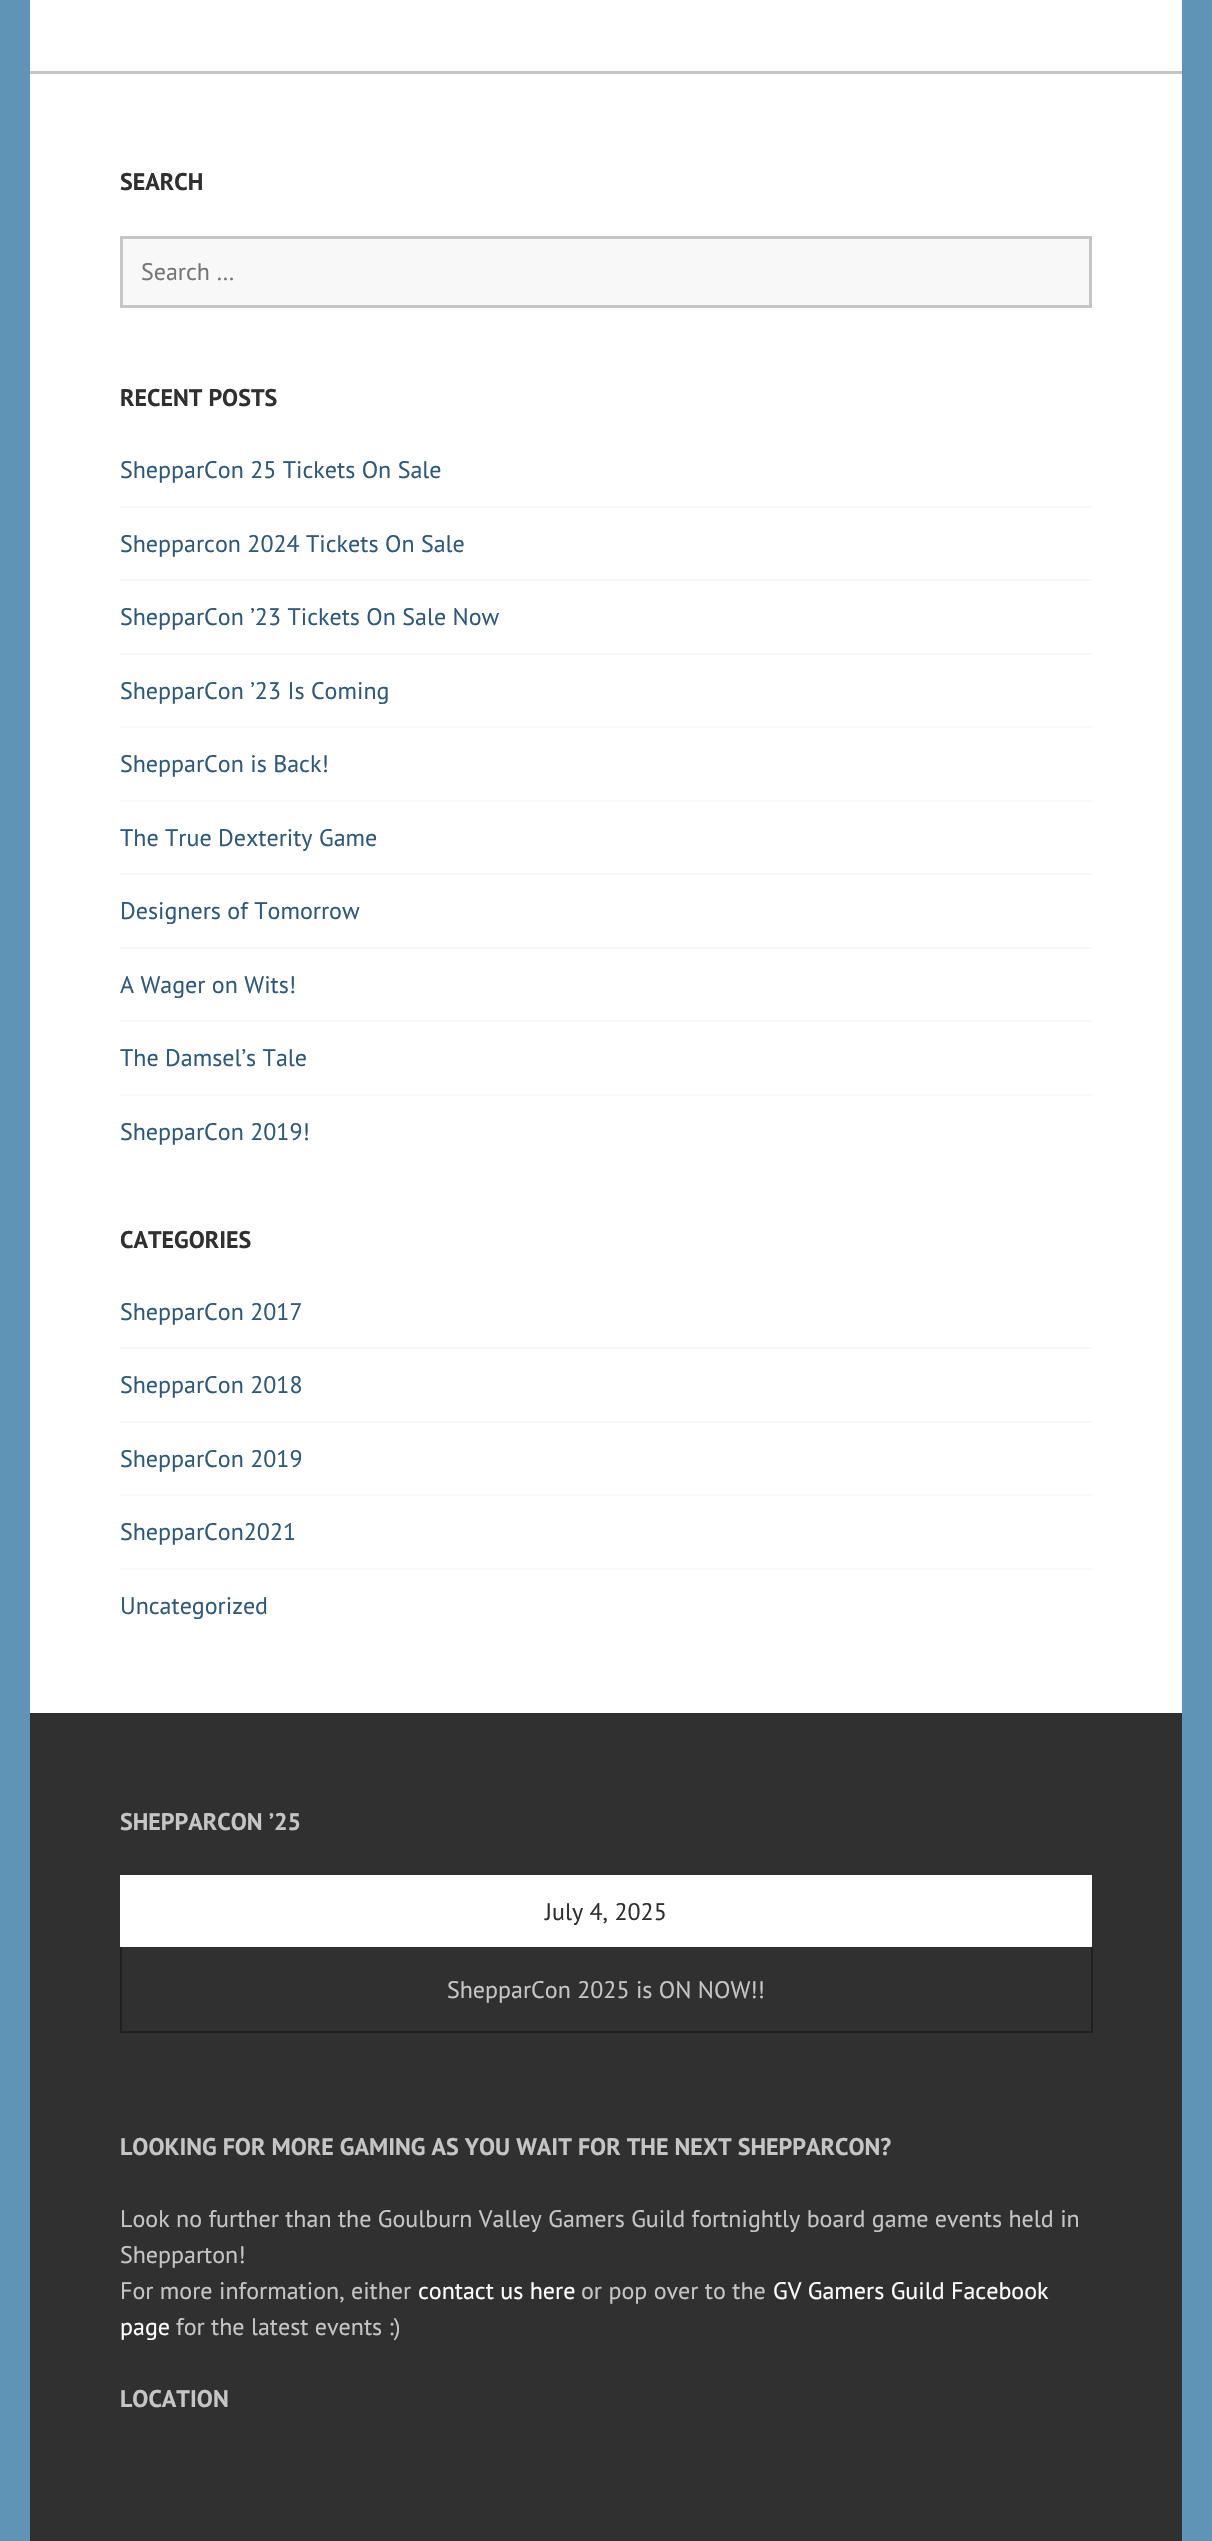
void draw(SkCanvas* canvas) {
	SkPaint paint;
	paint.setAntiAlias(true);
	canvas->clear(0xff6094b7);
	paint.setColor(0xffffffff);
	canvas->drawRect(SkRect::MakeXYWH(30, 0, 1152, 1713), paint);
	paint.setColor(0xffc5c5c5);
	canvas->drawRect(SkRect::MakeXYWH(30, 71, 1152, 3), paint);
	SkFont f1(fontMgr->matchFamilyStyle("PT Sans", SkFontStyle::Bold()), 24);
	f1.setSubpixel(true);
	paint.setColor(0xff303030);
	canvas->drawString("SEARCH", 120, 190, f1, paint);
	paint.setColor(0xfff8f8f8);
	canvas->drawRect(SkRect::MakeXYWH(121.5, 237.5, 969, 69), paint);
	paint.setStroke(true);
	paint.setStrokeWidth(3);
	paint.setColor(0xffc5c5c5);
	canvas->drawRect(SkRect::MakeXYWH(121.5, 237.5, 969, 69), paint);
	SkFont f2(fontMgr->matchFamilyStyle("PT Sans", SkFontStyle::Normal()), 24);
	f2.setSubpixel(true);
	paint.setStroke(false);
	paint.setColor(0xff757575);
	canvas->drawString("Search …", 141, 280, f2, paint);
	paint.setColor(0xff303030);
	canvas->drawString("RECENT POSTS", 120, 406, f1, paint);
	paint.setColor(0xff2d597a);
	canvas->drawString("ShepparCon 25 Tickets On Sale", 120, 478, f2, paint);
	paint.setColor(0xfff8f8f8);
	canvas->drawRect(SkRect::MakeXYWH(120, 506, 972, 2), paint);
	paint.setColor(0xff2d597a);
	canvas->drawString("Shepparcon 2024 Tickets On Sale", 120, 552, f2, paint);
	paint.setColor(0xfff8f8f8);
	canvas->drawRect(SkRect::MakeXYWH(120, 579, 972, 2), paint);
	paint.setColor(0xff2d597a);
	canvas->drawString("ShepparCon ’23 Tickets On Sale Now", 120, 625, f2, paint);
	paint.setColor(0xfff8f8f8);
	canvas->drawRect(SkRect::MakeXYWH(120, 653, 972, 2), paint);
	paint.setColor(0xff2d597a);
	canvas->drawString("ShepparCon ’23 Is Coming", 120, 699, f2, paint);
	paint.setColor(0xfff8f8f8);
	canvas->drawRect(SkRect::MakeXYWH(120, 726, 972, 2), paint);
	paint.setColor(0xff2d597a);
	canvas->drawString("ShepparCon is Back!", 120, 772, f2, paint);
	paint.setColor(0xfff8f8f8);
	canvas->drawRect(SkRect::MakeXYWH(120, 800, 972, 2), paint);
	paint.setColor(0xff2d597a);
	canvas->drawString("The True Dexterity Game", 120, 846, f2, paint);
	paint.setColor(0xfff8f8f8);
	canvas->drawRect(SkRect::MakeXYWH(120, 873, 972, 2), paint);
	paint.setColor(0xff2d597a);
	canvas->drawString("Designers of Tomorrow", 120, 919, f2, paint);
	paint.setColor(0xfff8f8f8);
	canvas->drawRect(SkRect::MakeXYWH(120, 947, 972, 2), paint);
	paint.setColor(0xff2d597a);
	canvas->drawString("A Wager on Wits!", 120, 993, f2, paint);
	paint.setColor(0xfff8f8f8);
	canvas->drawRect(SkRect::MakeXYWH(120, 1020, 972, 2), paint);
	paint.setColor(0xff2d597a);
	canvas->drawString("The Damsel’s Tale", 120, 1066, f2, paint);
	paint.setColor(0xfff8f8f8);
	canvas->drawRect(SkRect::MakeXYWH(120, 1094, 972, 2), paint);
	paint.setColor(0xff2d597a);
	canvas->drawString("ShepparCon 2019!", 120, 1140, f2, paint);
	paint.setColor(0xff303030);
	canvas->drawString("CATEGORIES", 120, 1248, f1, paint);
	paint.setColor(0xff2d597a);
	canvas->drawString("ShepparCon 2017", 120, 1320, f2, paint);
	paint.setColor(0xfff8f8f8);
	canvas->drawRect(SkRect::MakeXYWH(120, 1347, 972, 2), paint);
	paint.setColor(0xff2d597a);
	canvas->drawString("ShepparCon 2018", 120, 1393, f2, paint);
	paint.setColor(0xfff8f8f8);
	canvas->drawRect(SkRect::MakeXYWH(120, 1421, 972, 2), paint);
	paint.setColor(0xff2d597a);
	canvas->drawString("ShepparCon 2019", 120, 1467, f2, paint);
	paint.setColor(0xfff8f8f8);
	canvas->drawRect(SkRect::MakeXYWH(120, 1494, 972, 2), paint);
	paint.setColor(0xff2d597a);
	canvas->drawString("ShepparCon2021", 120, 1540, f2, paint);
	paint.setColor(0xfff8f8f8);
	canvas->drawRect(SkRect::MakeXYWH(120, 1568, 972, 2), paint);
	paint.setColor(0xff2d597a);
	canvas->drawString("Uncategorized", 120, 1614, f2, paint);
	paint.setColor(0xff303030);
	canvas->drawRect(SkRect::MakeXYWH(30, 1713, 1152, 828), paint);
	paint.setColor(0xffc5c5c5);
	canvas->drawString("SHEPPARCON ’25", 120, 1830, f1, paint);
	paint.setColor(0xffffffff);
	canvas->drawRect(SkRect::MakeXYWH(120, 1875, 972, 72), paint);
	paint.setColor(0xff303030);
	canvas->drawString("July 4, 2025", 545, 1920, f2, paint);
	paint.setColor(0xff202020);
	canvas->drawRect(SkRect::MakeXYWH(1091, 1947, 2, 86), paint);
	canvas->drawRect(SkRect::MakeXYWH(120, 2031, 972, 2), paint);
	canvas->drawRect(SkRect::MakeXYWH(120, 1947, 2, 86), paint);
	paint.setColor(0xffc5c5c5);
	canvas->drawString("ShepparCon 2025 is ON NOW!!", 447, 1998, f2, paint);
	canvas->drawString("LOOKING FOR MORE GAMING AS YOU WAIT FOR THE NEXT SHEPPARCON?", 120, 2155, f1, paint);
	canvas->drawString("Look no further than the Goulburn Valley Gamers Guild fortnightly board game events held in", 120, 2227, f2, paint);
	canvas->drawString("Shepparton!", 120, 2263, f2, paint);
	canvas->drawString("For more information, either", 120, 2299, f2, paint);
	paint.setColor(0xffffffff);
	canvas->drawString("contact us here", 418, 2299, f2, paint);
	paint.setColor(0xffc5c5c5);
	canvas->drawString("or pop over to the", 581, 2299, f2, paint);
	paint.setColor(0xffffffff);
	canvas->drawString("GV Gamers Guild Facebook", 773, 2299, f2, paint);
	canvas->drawString("page", 120, 2335, f2, paint);
	paint.setColor(0xffc5c5c5);
	canvas->drawString("for the latest events :)", 176, 2335, f2, paint);
	canvas->drawString("LOCATION", 120, 2407, f1, paint);
}
